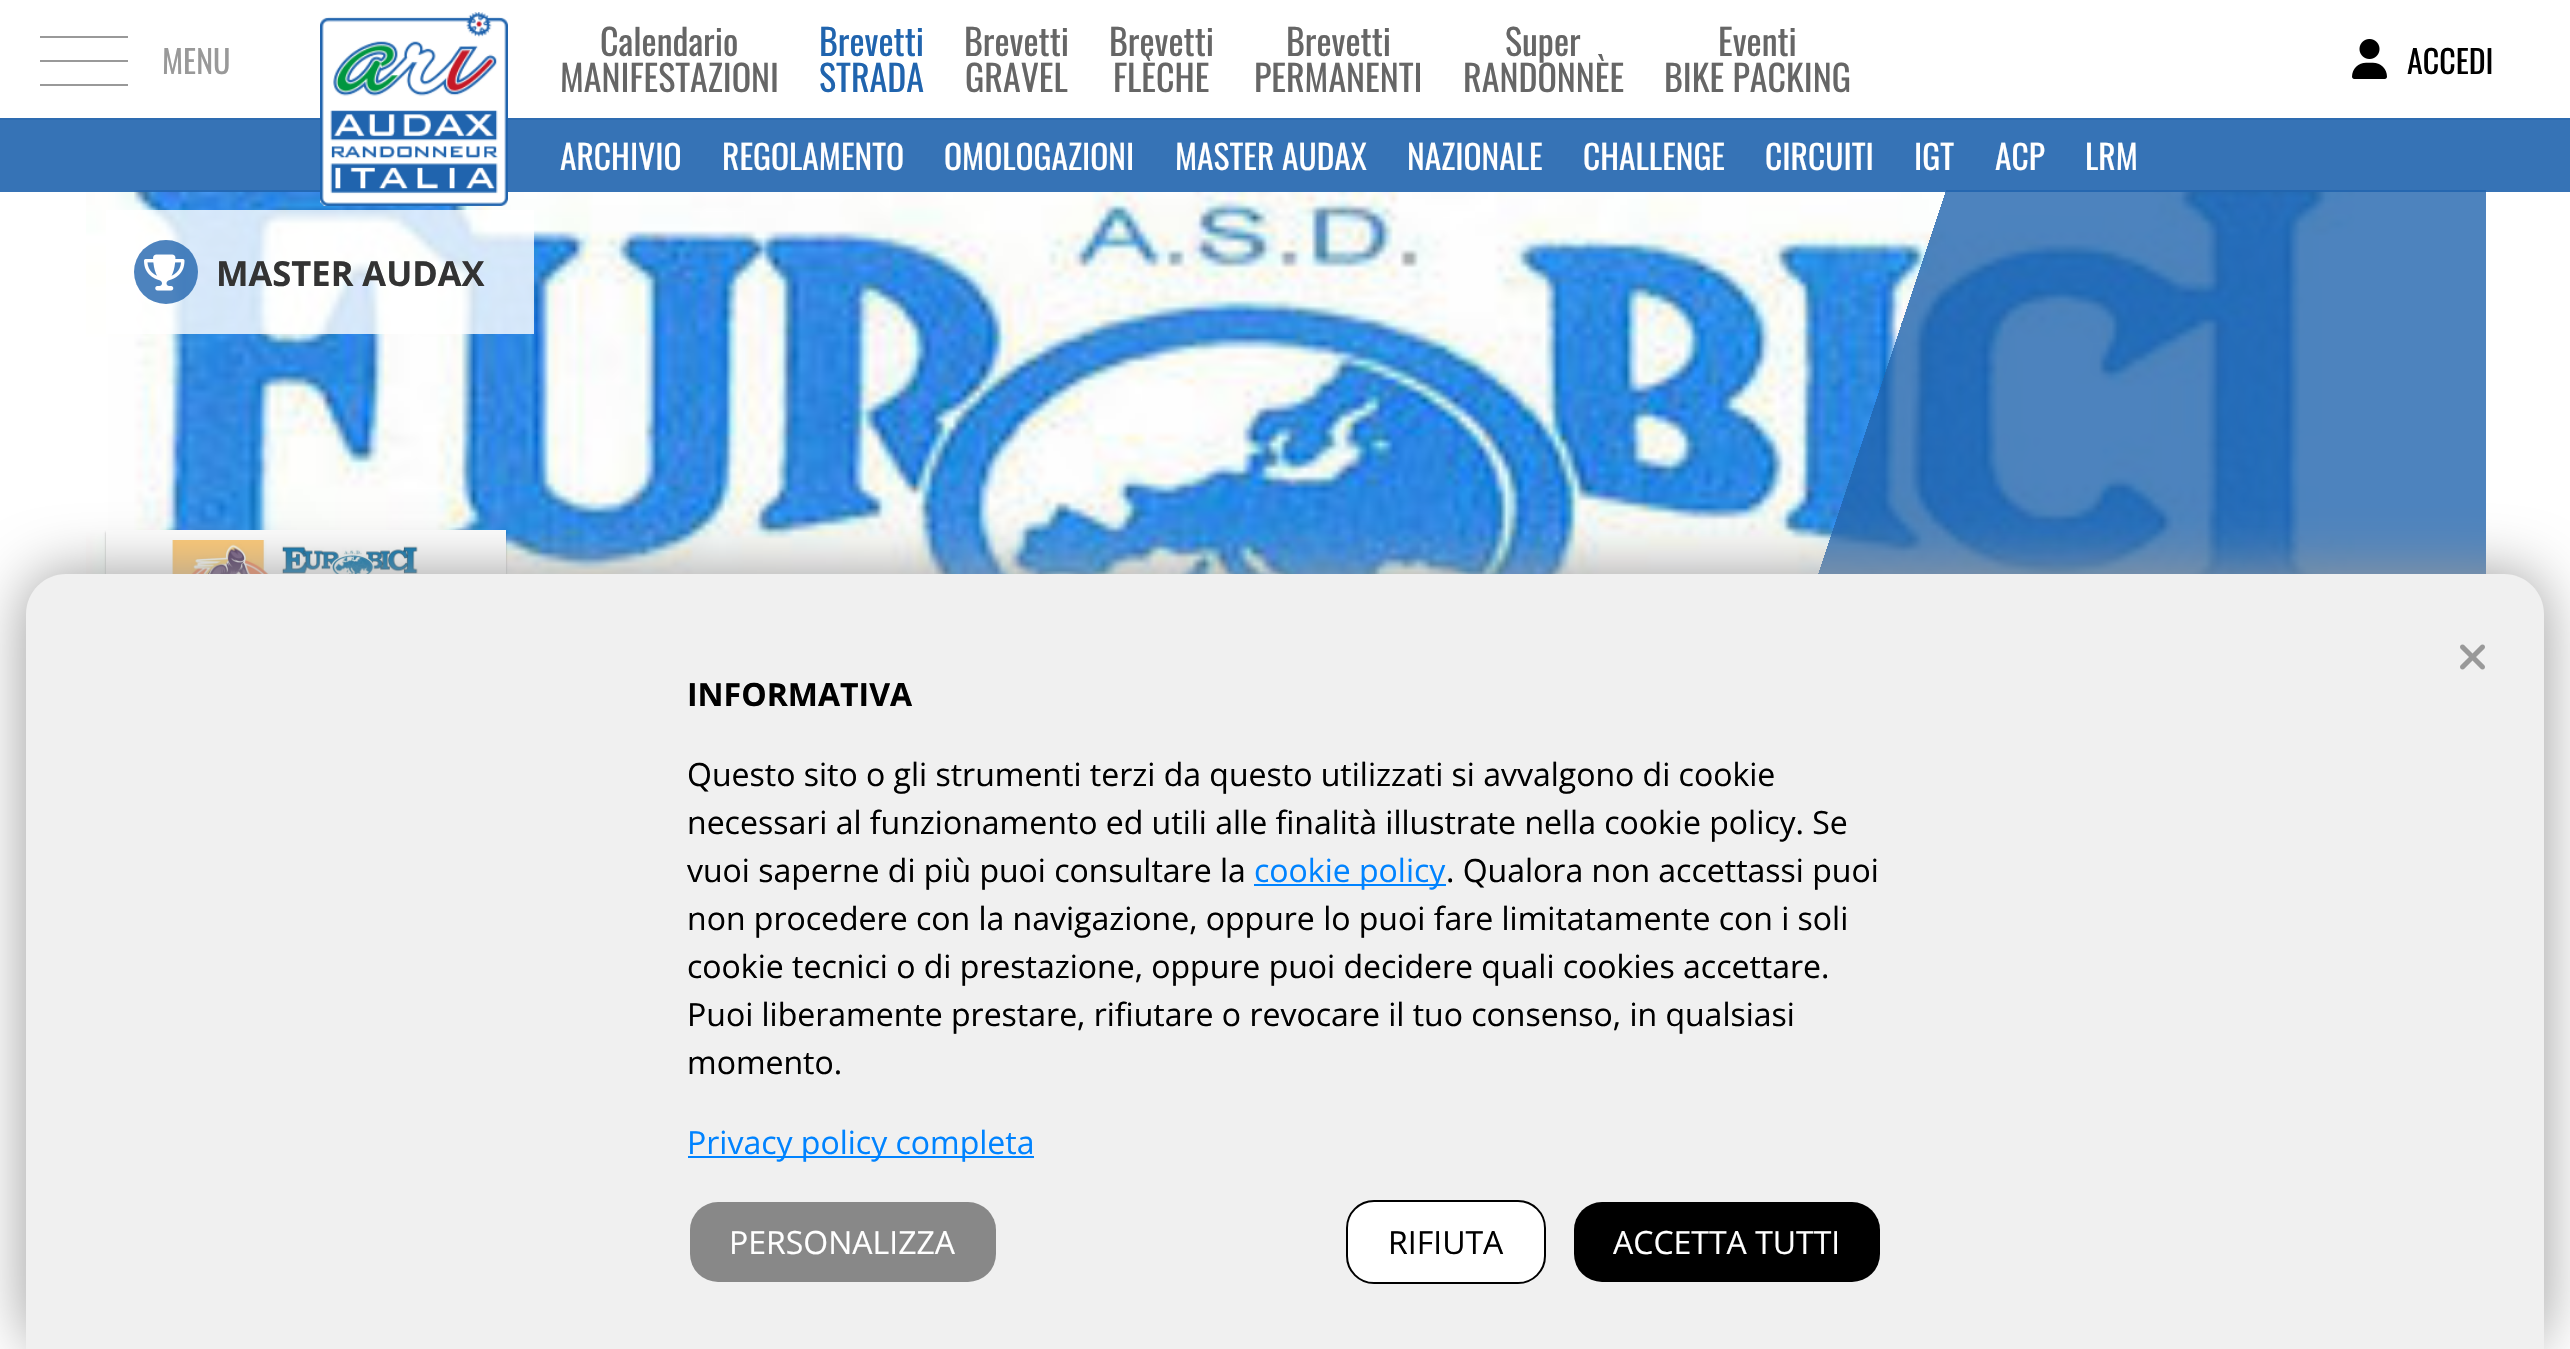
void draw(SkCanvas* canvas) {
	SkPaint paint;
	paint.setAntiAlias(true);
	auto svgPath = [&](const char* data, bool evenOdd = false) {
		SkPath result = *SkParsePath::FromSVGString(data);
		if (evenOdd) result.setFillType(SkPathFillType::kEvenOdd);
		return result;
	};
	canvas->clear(0xffffffff);
	paint.setColor(0xffa4b4c5);
	canvas->drawRect(SkRect::MakeXYWH(0, 118, 2570, 2), paint);
	paint.setColor(0xff999999);
	canvas->drawRect(SkRect::MakeXYWH(40, 84, 88, 2), paint);
	canvas->drawRect(SkRect::MakeXYWH(40, 60, 88, 2), paint);
	canvas->drawRect(SkRect::MakeXYWH(40, 36, 88, 2), paint);
	SkFont f1(fontMgr->matchFamilyStyle("Oswald", SkFontStyle::Normal()), 32);
	f1.setSubpixel(true);
	canvas->drawString("MENU", 162, 74, f1, paint);
	canvas->drawImageRect(SkImages::DeferredFromEncodedData(SkData::MakeFromFileName("img3.png")), SkRect::MakeXYWH(86, 190, 2290, 384), SkSamplingOptions());
	paint.setColor(0xcc2064ae);
	canvas->drawRect(SkRect::MakeXYWH(1946, 190, 540, 384), paint);
	paint.setColor(0xe62064ae);
	canvas->drawRect(SkRect::MakeXYWH(0, 118, 2570, 74), paint);
	canvas->drawImageRect(SkImages::DeferredFromEncodedData(SkData::MakeFromFileName("img1.png")), SkRect::MakeXYWH(320, 12, 188, 194), SkSamplingOptions());
	SkFont f2(fontMgr->matchFamilyStyle("Oswald", SkFontStyle::Normal()), 36);
	f2.setSubpixel(true);
	paint.setColor(0xff666666);
	canvas->drawString("Calendario", 600, 56, f2, paint);
	canvas->drawString("MANIFESTAZIONI", 560, 92, f2, paint);
	paint.setColor(0xff2064ae);
	canvas->drawString("Brevetti", 819, 56, f2, paint);
	canvas->drawString("STRADA", 819, 92, f2, paint);
	paint.setColor(0xff666666);
	canvas->drawString("Brevetti", 964, 56, f2, paint);
	canvas->drawString("GRAVEL", 965, 92, f2, paint);
	canvas->drawString("Brevetti", 1109, 56, f2, paint);
	canvas->drawString("FLÈCHE", 1113, 92, f2, paint);
	canvas->drawString("Brevetti", 1286, 56, f2, paint);
	canvas->drawString("PERMANENTI", 1254, 92, f2, paint);
	canvas->drawString("Super", 1505, 56, f2, paint);
	canvas->drawString("RANDONNÈE", 1463, 92, f2, paint);
	canvas->drawString("Eventi", 1718, 56, f2, paint);
	canvas->drawString("BIKE PACKING", 1664, 92, f2, paint);
	canvas->drawImageRect(SkImages::DeferredFromEncodedData(SkData::MakeFromFileName("img2.png")), SkRect::MakeXYWH(2352, 39, 35, 40), SkSamplingOptions());
	paint.setColor(0xff000000);
	canvas->drawString("ACCEDI", 2407, 74, f1, paint);
	SkFont f3(fontMgr->matchFamilyStyle("Oswald", SkFontStyle::Normal()), 33.5);
	f3.setSubpixel(true);
	paint.setColor(0xffffffff);
	canvas->drawString("ARCHIVIO", 560, 170, f3, paint);
	canvas->drawString("REGOLAMENTO", 722, 170, f3, paint);
	canvas->drawString("OMOLOGAZIONI", 944, 170, f3, paint);
	canvas->drawString("MASTER AUDAX", 1175, 170, f3, paint);
	canvas->drawString("NAZIONALE", 1407, 170, f3, paint);
	canvas->drawString("CHALLENGE", 1583, 170, f3, paint);
	canvas->drawString("CIRCUITI", 1765, 170, f3, paint);
	canvas->drawString("IGT", 1914, 170, f3, paint);
	canvas->drawString("ACP", 1995, 170, f3, paint);
	canvas->drawString("LRM", 2085, 170, f3, paint);
	paint.setColor(0xccffffff);
	canvas->drawRect(SkRect::MakeXYWH(106, 210, 428, 124), paint);
	paint.setColor(0xcc2064ae);
	canvas->drawCircle(166, 272, 32, paint);
	canvas->drawImageRect(SkImages::DeferredFromEncodedData(SkData::MakeFromFileName("img4.png")), SkRect::MakeXYWH(144, 254, 41, 37), SkSamplingOptions());
	SkFont f4(fontMgr->matchFamilyStyle("Open Sans", SkFontStyle::Bold()), 34.5);
	f4.setSubpixel(true);
	paint.setColor(0xff333333);
	canvas->drawString("MASTER AUDAX", 216, 286, f4, paint);
	paint.setColor(0x52000000);
	paint.setMaskFilter(SkMaskFilter::MakeBlur(kNormal_SkBlurStyle, 1));
	canvas->drawRect(SkRect::MakeXYWH(106, 532, 400, 400), paint);
	paint.setMaskFilter(nullptr);
	paint.setColor(0xffffffff);
	canvas->drawRect(SkRect::MakeXYWH(106, 530, 400, 44), paint);
	canvas->drawImageRect(SkImages::DeferredFromEncodedData(SkData::MakeFromFileName("img5.png")), SkRect::MakeXYWH(172, 540, 268, 34), SkSamplingOptions());
	paint.setColor(0xff999999);
	paint.setMaskFilter(SkMaskFilter::MakeBlur(kNormal_SkBlurStyle, 30));
	canvas->drawRoundRect(SkRect::MakeXYWH(26, 574, 2518, 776), 40, 40, paint);
	paint.setMaskFilter(nullptr);
	paint.setColor(0xfff0f0f0);
	canvas->drawPath(svgPath("M66 574H2504C2526 574 2544 592 2544 614V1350H26V614C26 592 44 574 66 574Z"), paint);
	canvas->drawImageRect(SkImages::DeferredFromEncodedData(SkData::MakeFromFileName("img6.png")), SkRect::MakeXYWH(2460, 644, 25, 26), SkSamplingOptions());
	SkFont f5(fontMgr->matchFamilyStyle("Open Sans", SkFontStyle::Bold()), 32);
	f5.setSubpixel(true);
	paint.setColor(0xff000000);
	canvas->drawString("INFORMATIVA", 687, 706, f5, paint);
	SkFont f6(fontMgr->matchFamilyStyle("Open Sans", SkFontStyle::Normal()), 32);
	f6.setSubpixel(true);
	canvas->drawString("Questo sito o gli strumenti terzi da questo utilizzati si avvalgono di cookie", 687, 786, f6, paint);
	canvas->drawString("necessari al funzionamento ed utili alle finalità illustrate nella cookie policy. Se", 687, 834, f6, paint);
	canvas->drawString("vuoi saperne di più puoi consultare la", 687, 882, f6, paint);
	paint.setColor(0xff0083ff);
	canvas->drawRect(SkRect::MakeXYWH(1254, 884, 192, 2), paint);
	canvas->drawString("cookie policy", 1254, 882, f6, paint);
	paint.setColor(0xff000000);
	canvas->drawString(". Qualora non accettassi puoi", 1446, 882, f6, paint);
	canvas->drawString("non procedere con la navigazione, oppure lo puoi fare limitatamente con i soli", 687, 930, f6, paint);
	canvas->drawString("cookie tecnici o di prestazione, oppure puoi decidere quali cookies accettare.", 687, 978, f6, paint);
	canvas->drawString("Puoi liberamente prestare, rifiutare o revocare il tuo consenso, in qualsiasi", 687, 1026, f6, paint);
	canvas->drawString("momento.", 687, 1074, f6, paint);
	paint.setColor(0xff0083ff);
	canvas->drawRect(SkRect::MakeXYWH(688, 1156, 346, 2), paint);
	canvas->drawString("Privacy policy completa", 687, 1154, f6, paint);
	paint.setColor(0xff888888);
	canvas->drawRoundRect(SkRect::MakeXYWH(690, 1202, 306, 80), 28, 28, paint);
	paint.setColor(0xffffffff);
	canvas->drawString("PERSONALIZZA", 729, 1254, f6, paint);
	canvas->drawRoundRect(SkRect::MakeXYWH(1347, 1201, 198, 82), 27, 27, paint);
	paint.setStroke(true);
	paint.setStrokeWidth(2);
	paint.setColor(0xff000000);
	canvas->drawRoundRect(SkRect::MakeXYWH(1347, 1201, 198, 82), 27, 27, paint);
	paint.setStroke(false);
	canvas->drawString("RIFIUTA", 1388, 1254, f6, paint);
	canvas->drawRoundRect(SkRect::MakeXYWH(1574, 1202, 306, 80), 28, 28, paint);
	paint.setColor(0xffffffff);
	canvas->drawString("ACCETTA TUTTI", 1613, 1254, f6, paint);
}
